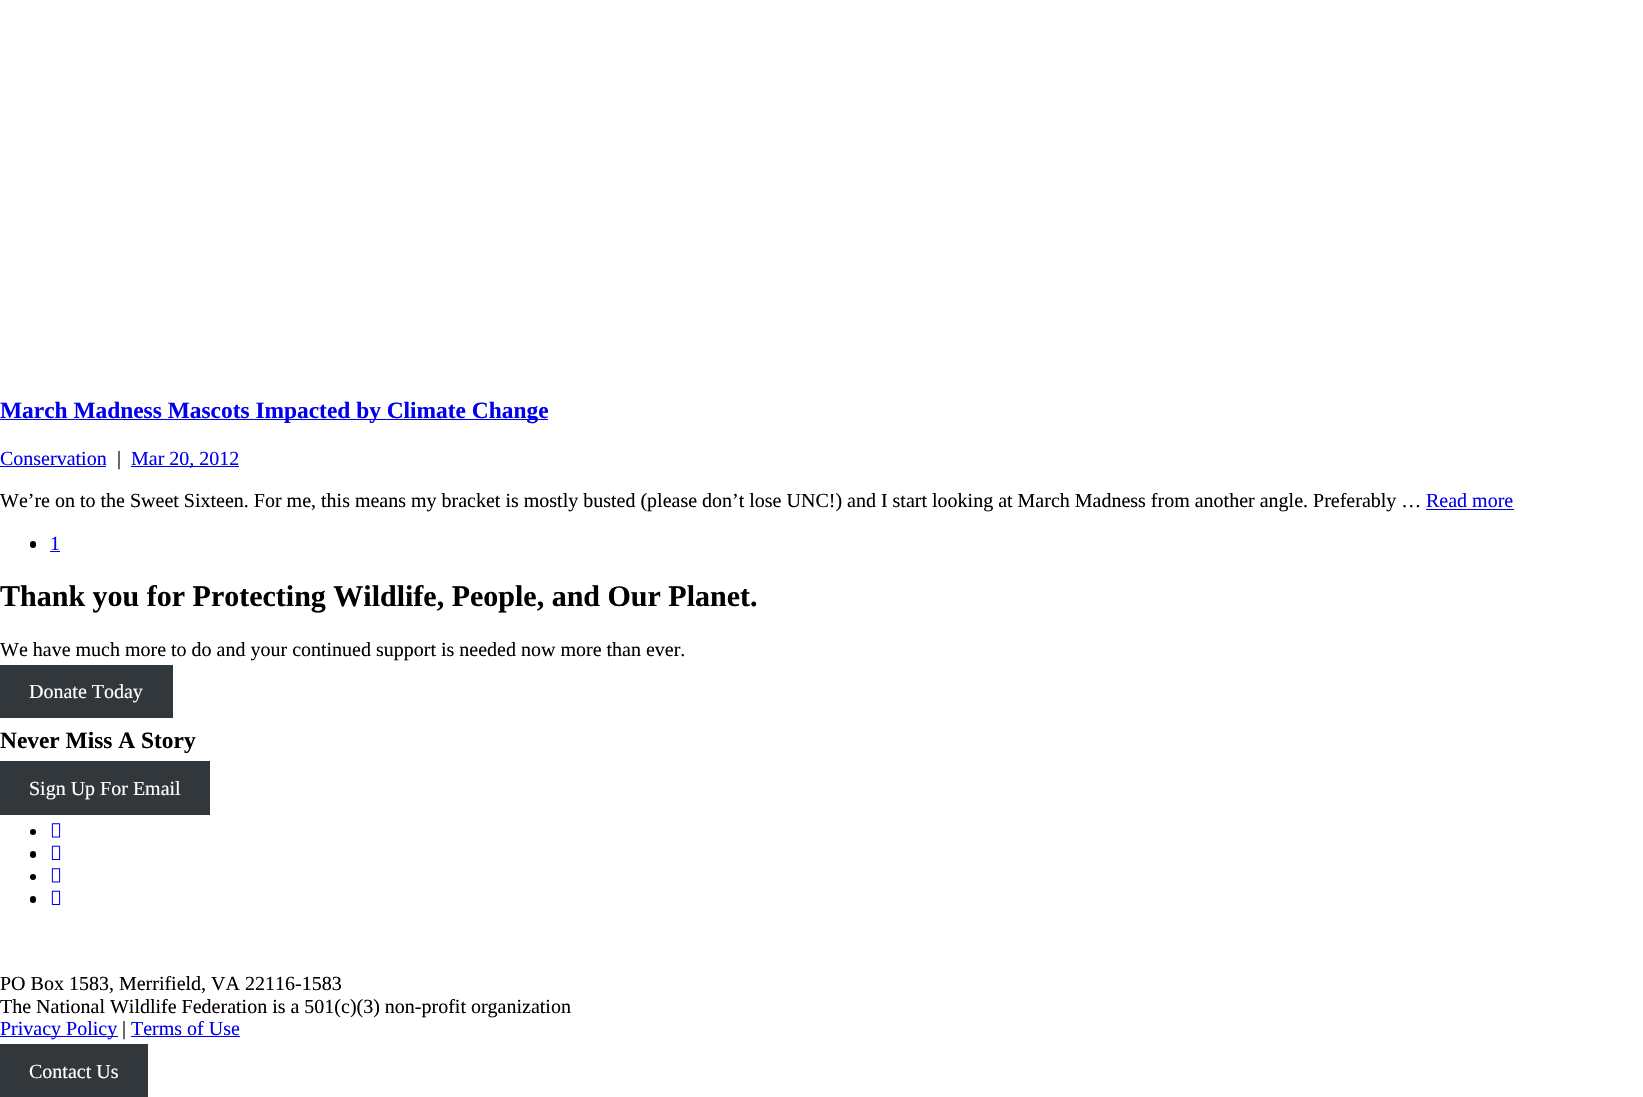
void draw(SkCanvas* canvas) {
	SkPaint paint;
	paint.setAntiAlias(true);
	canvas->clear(0xffffffff);
	paint.setColor(0xff0000ee);
	canvas->drawRect(SkRect::MakeXYWH(0, 419, 548, 1), paint);
	SkFont f1(fontMgr->matchFamilyStyle("Liberation Serif", SkFontStyle::Bold()), 23.4);
	f1.setSubpixel(true);
	canvas->drawString("March Madness Mascots Impacted by Climate Change", 0, 418, f1, paint);
	SkFont f2(fontMgr->matchFamilyStyle("Liberation Serif", SkFontStyle::Normal()), 20);
	f2.setSubpixel(true);
	canvas->drawString("Conservation", 0, 465, f2, paint);
	canvas->drawRect(SkRect::MakeXYWH(0, 466, 106, 1), paint);
	paint.setColor(0xff000000);
	canvas->drawString("|", 117, 465, f2, paint);
	paint.setColor(0xff0000ee);
	canvas->drawRect(SkRect::MakeXYWH(131, 466, 108, 1), paint);
	canvas->drawString("Mar 20, 2012", 131, 465, f2, paint);
	paint.setColor(0xff000000);
	canvas->drawString("We’re on to the Sweet Sixteen. For me, this means my bracket is mostly busted (please don’t lose UNC!) and I start looking at March Madness from another angle. Preferably …", 0, 507, f2, paint);
	paint.setColor(0xff0000ee);
	canvas->drawString("Read more", 1426, 507, f2, paint);
	canvas->drawRect(SkRect::MakeXYWH(1426, 509, 88, 1), paint);
	paint.setColor(0xff000000);
	canvas->drawRoundRect(SkRect::MakeXYWH(30, 541, 6, 7), 3, 3, paint);
	paint.setColor(0xff0000ee);
	canvas->drawString("1", 50, 550, f2, paint);
	canvas->drawRect(SkRect::MakeXYWH(50, 551, 10, 1), paint);
	SkFont f3(fontMgr->matchFamilyStyle("Liberation Serif", SkFontStyle::Bold()), 30);
	f3.setSubpixel(true);
	paint.setColor(0xff000000);
	canvas->drawString("Thank you for Protecting Wildlife, People, and Our Planet.", 0, 606, f3, paint);
	canvas->drawString("We have much more to do and your continued support is needed now more than ever.", 0, 656, f2, paint);
	paint.setColor(0xff32373c);
	canvas->drawRect(SkRect::MakeXYWH(0, 665, 173, 53), paint);
	paint.setColor(0xffffffff);
	canvas->drawString("Donate Today", 29, 698, f2, paint);
	paint.setColor(0xff000000);
	canvas->drawString("Never Miss A Story", 0, 748, f1, paint);
	paint.setColor(0xff32373c);
	canvas->drawRect(SkRect::MakeXYWH(0, 761, 210, 54), paint);
	paint.setColor(0xffffffff);
	canvas->drawString("Sign Up For Email", 29, 795, f2, paint);
	paint.setColor(0xff000000);
	canvas->drawCircle(33, 832, 3, paint);
	canvas->drawImageRect(SkImages::DeferredFromEncodedData(SkData::MakeFromFileName("img1.png")), SkRect::MakeXYWH(51, 823, 10, 15), SkSamplingOptions());
	canvas->drawRoundRect(SkRect::MakeXYWH(30, 851, 6, 7), 3, 3, paint);
	canvas->drawImageRect(SkImages::DeferredFromEncodedData(SkData::MakeFromFileName("img2.png")), SkRect::MakeXYWH(51, 845, 10, 15), SkSamplingOptions());
	canvas->drawCircle(33, 877, 3, paint);
	canvas->drawImageRect(SkImages::DeferredFromEncodedData(SkData::MakeFromFileName("img1.png")), SkRect::MakeXYWH(51, 868, 10, 15), SkSamplingOptions());
	canvas->drawRoundRect(SkRect::MakeXYWH(30, 896, 6, 7), 3, 3, paint);
	canvas->drawImageRect(SkImages::DeferredFromEncodedData(SkData::MakeFromFileName("img2.png")), SkRect::MakeXYWH(51, 890, 10, 15), SkSamplingOptions());
	canvas->drawString("PO Box 1583, Merrifield, VA 22116-1583", 0, 990, f2, paint);
	canvas->drawString("The National Wildlife Federation is a 501(c)(3) non-profit organization", 0, 1013, f2, paint);
	paint.setColor(0xff0000ee);
	canvas->drawRect(SkRect::MakeXYWH(0, 1036, 118, 1), paint);
	canvas->drawString("Privacy Policy", 0, 1035, f2, paint);
	paint.setColor(0xff000000);
	canvas->drawString("|", 122, 1035, f2, paint);
	paint.setColor(0xff0000ee);
	canvas->drawString("Terms of Use", 131, 1035, f2, paint);
	canvas->drawRect(SkRect::MakeXYWH(131, 1036, 109, 1), paint);
	paint.setColor(0xff32373c);
	canvas->drawRect(SkRect::MakeXYWH(0, 1044, 148, 53), paint);
	paint.setColor(0xffffffff);
	canvas->drawString("Contact Us", 29, 1078, f2, paint);
}
